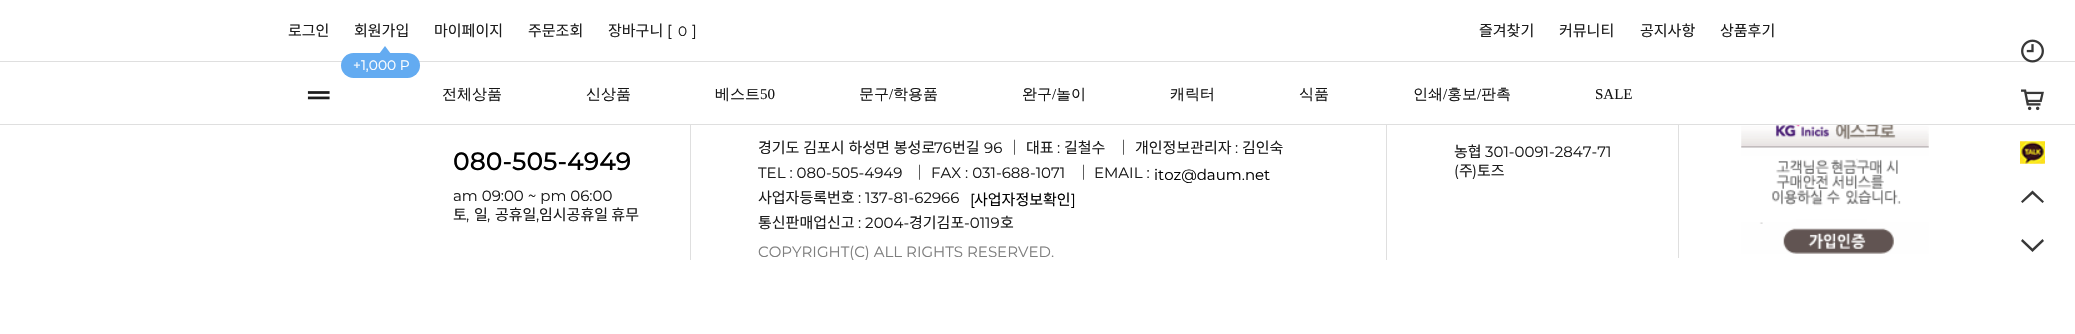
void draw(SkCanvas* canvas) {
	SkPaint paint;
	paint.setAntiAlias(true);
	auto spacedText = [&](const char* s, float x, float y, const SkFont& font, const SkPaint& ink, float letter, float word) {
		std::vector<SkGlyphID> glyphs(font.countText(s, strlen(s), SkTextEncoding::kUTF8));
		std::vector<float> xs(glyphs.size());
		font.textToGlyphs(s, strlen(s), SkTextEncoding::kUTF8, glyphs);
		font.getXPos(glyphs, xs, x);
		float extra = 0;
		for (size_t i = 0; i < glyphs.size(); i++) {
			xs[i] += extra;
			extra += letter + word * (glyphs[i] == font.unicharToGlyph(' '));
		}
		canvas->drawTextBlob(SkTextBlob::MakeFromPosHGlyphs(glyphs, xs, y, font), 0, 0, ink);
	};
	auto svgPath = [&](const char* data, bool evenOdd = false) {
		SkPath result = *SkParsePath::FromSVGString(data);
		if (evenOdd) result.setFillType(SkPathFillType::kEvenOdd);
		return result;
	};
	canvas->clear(0xffffffff);
	paint.setColor(0xffdfdfdf);
	canvas->drawRect(SkRect::MakeXYWH(0, 61, 2075, 1), paint);
	SkFont f1(fontMgr->matchFamilyStyle("Noto Sans KR", SkFontStyle::Normal()), 15);
	f1.setSubpixel(true);
	paint.setColor(0xff1c1c1c);
	canvas->drawString("로그인", 288, 36, f1, paint);
	canvas->drawString("회원가입", 354, 36, f1, paint);
	paint.setColor(0xff63abf1);
	canvas->drawRoundRect(SkRect::MakeXYWH(341, 53, 79, 25), 12.5, 12.5, paint);
	canvas->drawPath(svgPath("M391 54H379L385 46Z"), paint);
	SkFont f2(fontMgr->matchFamilyStyle("Montserrat", SkFontStyle::Normal()), 13.75);
	f2.setSubpixel(true);
	paint.setColor(0xffffffff);
	canvas->drawString("+1,000 P", 353, 70, f2, paint);
	paint.setColor(0xff1c1c1c);
	canvas->drawString("마이페이지", 434, 36, f1, paint);
	canvas->drawString("주문조회", 528, 36, f1, paint);
	canvas->drawString("장바구니", 608, 36, f1, paint);
	SkFont f3(fontMgr->matchFamilyStyle("Montserrat", SkFontStyle::Normal()), 15);
	f3.setSubpixel(true);
	canvas->drawString("[", 667, 36, f3, paint);
	canvas->drawString("0", 678, 36, f2, paint);
	canvas->drawString("]", 692, 36, f3, paint);
	canvas->drawString("즐겨찾기", 1479, 36, f1, paint);
	canvas->drawString("커뮤니티", 1559, 36, f1, paint);
	canvas->drawString("공지사항", 1640, 36, f1, paint);
	canvas->drawString("상품후기", 1720, 36, f1, paint);
	paint.setColor(0xffdfdfdf);
	canvas->drawRect(SkRect::MakeXYWH(0, 124, 2075, 1), paint);
	canvas->drawImageRect(SkImages::DeferredFromEncodedData(SkData::MakeFromFileName("img1.png")), SkRect::MakeXYWH(307, 91, 23, 9), SkSamplingOptions());
	SkFont f4(fontMgr->matchFamilyStyle("WenQuanYi Zen Hei", SkFontStyle(500, SkFontStyle::kNormal_Width, SkFontStyle::kUpright_Slant)), 15);
	f4.setSubpixel(true);
	paint.setColor(0xff151515);
	canvas->drawString("전체상품", 442, 99, f4, paint);
	canvas->drawString("신상품", 586, 99, f4, paint);
	canvas->drawString("베스트", 715, 99, f4, paint);
	SkFont f5(fontMgr->matchFamilyStyle("Liberation Serif", SkFontStyle::Normal()), 15);
	f5.setSubpixel(true);
	canvas->drawString("50", 760, 99, f5, paint);
	canvas->drawString("문구", 859, 99, f4, paint);
	canvas->drawString("/", 889, 99, f5, paint);
	canvas->drawString("학용품", 893, 99, f4, paint);
	canvas->drawString("완구", 1022, 99, f4, paint);
	canvas->drawString("/", 1052, 99, f5, paint);
	canvas->drawString("놀이", 1056, 99, f4, paint);
	canvas->drawString("캐릭터", 1170, 99, f4, paint);
	canvas->drawString("식품", 1299, 99, f4, paint);
	canvas->drawString("인쇄", 1413, 99, f4, paint);
	canvas->drawString("/", 1443, 99, f5, paint);
	canvas->drawString("홍보", 1447, 99, f4, paint);
	canvas->drawString("/", 1477, 99, f5, paint);
	canvas->drawString("판촉", 1481, 99, f4, paint);
	canvas->drawString("SALE", 1595, 99, f5, paint);
	canvas->drawImageRect(SkImages::DeferredFromEncodedData(SkData::MakeFromFileName("img2.png")), SkRect::MakeXYWH(2021, 39, 23, 24), SkSamplingOptions());
	canvas->drawImageRect(SkImages::DeferredFromEncodedData(SkData::MakeFromFileName("img3.png")), SkRect::MakeXYWH(2021, 89, 23, 22), SkSamplingOptions());
	canvas->drawImageRect(SkImages::DeferredFromEncodedData(SkData::MakeFromFileName("img4.png")), SkRect::MakeXYWH(2020, 141, 25, 23), SkSamplingOptions());
	paint.setColor(0xff383838);
	canvas->drawPath(svgPath("M2042.5 203L2032.5 194L2022.5 203L2021 201.5L2032.5 190.5L2044 201.5ZM2022.5 239L2032.5 248.5L2042.5 239L2044 241L2032.5 252L2021 241Z"), paint);
	SkFont f6(fontMgr->matchFamilyStyle("Montserrat", SkFontStyle(500, SkFontStyle::kNormal_Width, SkFontStyle::kUpright_Slant)), 25);
	f6.setSubpixel(true);
	paint.setColor(0xff000000);
	canvas->drawString("080-505-4949", 453, 170, f6, paint);
	paint.setColor(0xff1c1c1c);
	canvas->drawString("am 09:00 ~ pm 06:00", 453, 201, f3, paint);
	canvas->drawString("토", 453, 220, f1, paint);
	canvas->drawString("일", 474, 220, f1, paint);
	canvas->drawString("공휴일", 495, 220, f1, paint);
	canvas->drawString("임시공휴일 휴무", 539, 220, f1, paint);
	canvas->drawString(",", 466, 220, f3, paint);
	canvas->drawString(",", 487, 220, f3, paint);
	canvas->drawString(",", 536, 220, f3, paint);
	paint.setColor(0xffdfdfdf);
	canvas->drawRect(SkRect::MakeXYWH(1386, 125, 1, 135), paint);
	canvas->drawRect(SkRect::MakeXYWH(690, 125, 1, 135), paint);
	paint.setColor(0xff1c1c1c);
	spacedText("경기도 김포시 하성면 봉성로", 758, 153, f1, paint, 0, 0.5);
	canvas->drawString("76", 934, 153, f3, paint);
	canvas->drawString("번길", 952, 153, f1, paint);
	canvas->drawString("96", 984, 153, f3, paint);
	canvas->drawString("｜", 1007, 153, f1, paint);
	canvas->drawString("대표", 1026, 153, f1, paint);
	canvas->drawString(":", 1057, 153, f3, paint);
	canvas->drawString("길철수", 1064, 153, f1, paint);
	canvas->drawString("｜", 1116, 153, f1, paint);
	canvas->drawString("개인정보관리자", 1135, 153, f1, paint);
	canvas->drawString(":", 1235, 153, f3, paint);
	canvas->drawString("김인숙", 1242, 153, f1, paint);
	canvas->drawString("TEL : 080-505-4949", 758, 178, f3, paint);
	canvas->drawString("｜", 912, 178, f1, paint);
	canvas->drawString("FAX : 031-688-1071", 931, 178, f3, paint);
	canvas->drawString("｜", 1076, 178, f1, paint);
	canvas->drawString("EMAIL :", 1094, 178, f3, paint);
	paint.setColor(0xff000000);
	canvas->drawString("itoz@daum.net", 1154, 180, f3, paint);
	paint.setColor(0xff1c1c1c);
	canvas->drawString("사업자등록번호", 758, 203, f1, paint);
	canvas->drawString(": 137-81-62966", 858, 203, f3, paint);
	paint.setColor(0xff000000);
	canvas->drawString("[", 970, 205, f3, paint);
	canvas->drawString("사업자정보확인", 974, 205, f1, paint);
	canvas->drawString("]", 1071, 205, f3, paint);
	paint.setColor(0xff1c1c1c);
	canvas->drawString("통신판매업신고", 758, 228, f1, paint);
	canvas->drawString(": 2004-", 858, 228, f3, paint);
	canvas->drawString("경기김포", 909, 228, f1, paint);
	canvas->drawString("-0119", 964, 228, f3, paint);
	canvas->drawString("호", 1000, 228, f1, paint);
	paint.setColor(0xff7e7e7e);
	canvas->drawString("COPYRIGHT(C) ALL RIGHTS RESERVED.", 758, 257, f3, paint);
	paint.setColor(0xffdfdfdf);
	canvas->drawRect(SkRect::MakeXYWH(1678, 125, 1, 133), paint);
	paint.setColor(0xff1c1c1c);
	canvas->drawString("농협", 1454, 157, f1, paint);
	canvas->drawString("301-0091-2847-71", 1485, 157, f3, paint);
	canvas->drawString("(", 1454, 176, f3, paint);
	canvas->drawString("주", 1459, 176, f1, paint);
	canvas->drawString(")", 1472, 176, f3, paint);
	canvas->drawString("토즈", 1477, 176, f1, paint);
	canvas->drawImageRect(SkImages::DeferredFromEncodedData(SkData::MakeFromFileName("img5.png")), SkRect::MakeXYWH(1741, 125, 188, 129), SkSamplingOptions());
}
